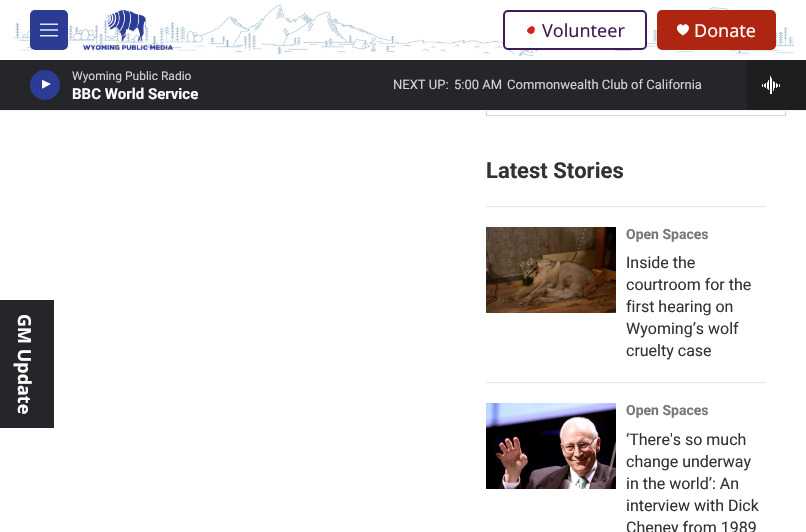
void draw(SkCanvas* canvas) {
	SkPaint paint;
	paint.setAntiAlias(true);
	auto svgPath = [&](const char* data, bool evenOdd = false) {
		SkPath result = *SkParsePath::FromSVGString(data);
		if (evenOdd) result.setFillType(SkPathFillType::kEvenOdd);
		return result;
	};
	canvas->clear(0xffffffff);
	paint.setStroke(true);
	paint.setStrokeWidth(1);
	paint.setColor(0xffd3d3d3);
	canvas->drawRect(SkRect::MakeXYWH(486.5, -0.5, 299, 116), paint);
	paint.setStroke(false);
	paint.setColor(0xffffffff);
	canvas->drawRect(SkRect::MakeXYWH(486, 0, 300, 60), paint);
	paint.setColor(0xfff5f5f5);
	canvas->drawRect(SkRect::MakeXYWH(0, 110, 806, 1), paint);
	canvas->drawImageRect(SkImages::DeferredFromEncodedData(SkData::MakeFromFileName("img1.png")), SkRect::MakeXYWH(14, 4, 781, 53), SkSamplingOptions());
	paint.setColor(0xff2c3c94);
	canvas->drawRoundRect(SkRect::MakeXYWH(30, 10, 38, 40), 5, 5, paint);
	canvas->drawImageRect(SkImages::DeferredFromEncodedData(SkData::MakeFromFileName("img2.png")), SkRect::MakeXYWH(40, 23, 18, 14), SkSamplingOptions());
	canvas->drawImageRect(SkImages::DeferredFromEncodedData(SkData::MakeFromFileName("img3.png")), SkRect::MakeXYWH(83, 10, 90, 40), SkSamplingOptions());
	paint.setColor(0xffffffff);
	canvas->drawRoundRect(SkRect::MakeXYWH(504, 11, 142, 38), 4, 4, paint);
	paint.setStroke(true);
	paint.setStrokeWidth(2);
	paint.setColor(0xff411c58);
	canvas->drawRoundRect(SkRect::MakeXYWH(504, 11, 142, 38), 4, 4, paint);
	paint.setStroke(false);
	paint.setColor(0xffd62021);
	canvas->drawPath(svgPath("M532 26C538 27.5 533.5 37 528.5 33C528 32.5 527 31.5 527 31C527 28.5 530 26.5 532 26Z"), paint);
	SkFont f1(fontMgr->matchFamilyStyle("Noto Sans", SkFontStyle::Normal()), 18);
	f1.setSubpixel(true);
	paint.setColor(0xff411c58);
	canvas->drawString("Volunteer", 542, 37, f1, paint);
	paint.setColor(0xffae2512);
	canvas->drawRoundRect(SkRect::MakeXYWH(657, 10, 119, 40), 5, 5, paint);
	paint.setColor(0xffffffff);
	canvas->drawPath(svgPath("M683 26C681 21 670.5 28 683 35.5C695.5 28 685 21 683 26Z"), paint);
	canvas->drawString("Donate", 694, 37, f1, paint);
	paint.setColor(0xff252629);
	canvas->drawRect(SkRect::MakeXYWH(0, 60, 747, 50), paint);
	paint.setColor(0xff2c3c94);
	canvas->drawCircle(45, 85, 15, paint);
	canvas->save();
	canvas->clipRect(SkRect::MakeXYWH(42, 78, 12, 15));
	paint.setColor(0xffffffff);
	canvas->drawPath(svgPath("M41.5 79.5L51 84L41.5 89Z"), paint);
	canvas->restore();
	SkFont f2(fontMgr->matchFamilyStyle("Roboto", SkFontStyle::Normal()), 12);
	f2.setSubpixel(true);
	paint.setColor(0xffd3d4d4);
	canvas->drawString("Wyoming Public Radio", 72, 80, f2, paint);
	SkFont f3(fontMgr->matchFamilyStyle("Roboto", SkFontStyle::Bold()), 15);
	f3.setSubpixel(true);
	paint.setColor(0xffffffff);
	canvas->drawString("BBC World Service", 72, 99, f3, paint);
	SkFont f4(fontMgr->matchFamilyStyle("Roboto", SkFontStyle::Normal()), 13);
	f4.setSubpixel(true);
	paint.setColor(0xffd3d4d4);
	canvas->drawString("NEXT UP:", 393, 89, f4, paint);
	canvas->drawString("5:00 AM", 454, 89, f4, paint);
	canvas->drawString("Commonwealth Club of California", 507, 89, f4, paint);
	paint.setColor(0xff1e1e21);
	canvas->drawRect(SkRect::MakeXYWH(747, 60, 59, 50), paint);
	canvas->drawImageRect(SkImages::DeferredFromEncodedData(SkData::MakeFromFileName("img4.png")), SkRect::MakeXYWH(762, 76, 18, 18), SkSamplingOptions());
	paint.setColor(0xff25262a);
	canvas->drawRect(SkRect::MakeXYWH(0, 300, 54, 128), paint);
	SkFont f5(fontMgr->matchFamilyStyle("Noto Sans", SkFontStyle::Bold()), 18);
	f5.setSubpixel(true);
	paint.setColor(0xffffffff);
	canvas->save();
	canvas->rotate(90, 18, 314);
	canvas->drawString("GM Update", 18, 314, f5, paint);
	canvas->restore();
	paint.setColor(0xffe6e6e6);
	canvas->drawRect(SkRect::MakeXYWH(486, 206, 280, 1), paint);
	SkFont f6(fontMgr->matchFamilyStyle("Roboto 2", SkFontStyle::Bold()), 22);
	f6.setSubpixel(true);
	paint.setColor(0xff333333);
	canvas->drawString("Latest Stories", 486, 178, f6, paint);
	paint.setColor(0xffe6e6e6);
	canvas->drawRect(SkRect::MakeXYWH(486, 382, 280, 1), paint);
	canvas->drawImageRect(SkImages::DeferredFromEncodedData(SkData::MakeFromFileName("img5.png")), SkRect::MakeXYWH(486, 227, 130, 86), SkSamplingOptions());
	SkFont f7(fontMgr->matchFamilyStyle("Roboto", SkFontStyle::Bold()), 14);
	f7.setSubpixel(true);
	paint.setColor(0xff767676);
	canvas->drawString("Open Spaces", 626, 239, f7, paint);
	SkFont f8(fontMgr->matchFamilyStyle("Roboto", SkFontStyle::Normal()), 16);
	f8.setSubpixel(true);
	paint.setColor(0xff333333);
	canvas->drawString("Inside the", 626, 268, f8, paint);
	canvas->drawString("courtroom for the", 626, 290, f8, paint);
	canvas->drawString("first hearing on", 626, 312, f8, paint);
	canvas->drawString("Wyoming’s wolf", 626, 334, f8, paint);
	canvas->drawString("cruelty case", 626, 356, f8, paint);
	canvas->drawImageRect(SkImages::DeferredFromEncodedData(SkData::MakeFromFileName("img6.png")), SkRect::MakeXYWH(486, 403, 130, 86), SkSamplingOptions());
	paint.setColor(0xff767676);
	canvas->drawString("Open Spaces", 626, 415, f7, paint);
	paint.setColor(0xff333333);
	canvas->drawString("‘There's so much", 626, 445, f8, paint);
	canvas->drawString("change underway", 626, 467, f8, paint);
	canvas->drawString("in the world’: An", 626, 489, f8, paint);
	canvas->drawString("interview with Dick", 626, 511, f8, paint);
	canvas->drawString("Cheney from 1989", 626, 533, f8, paint);
}
